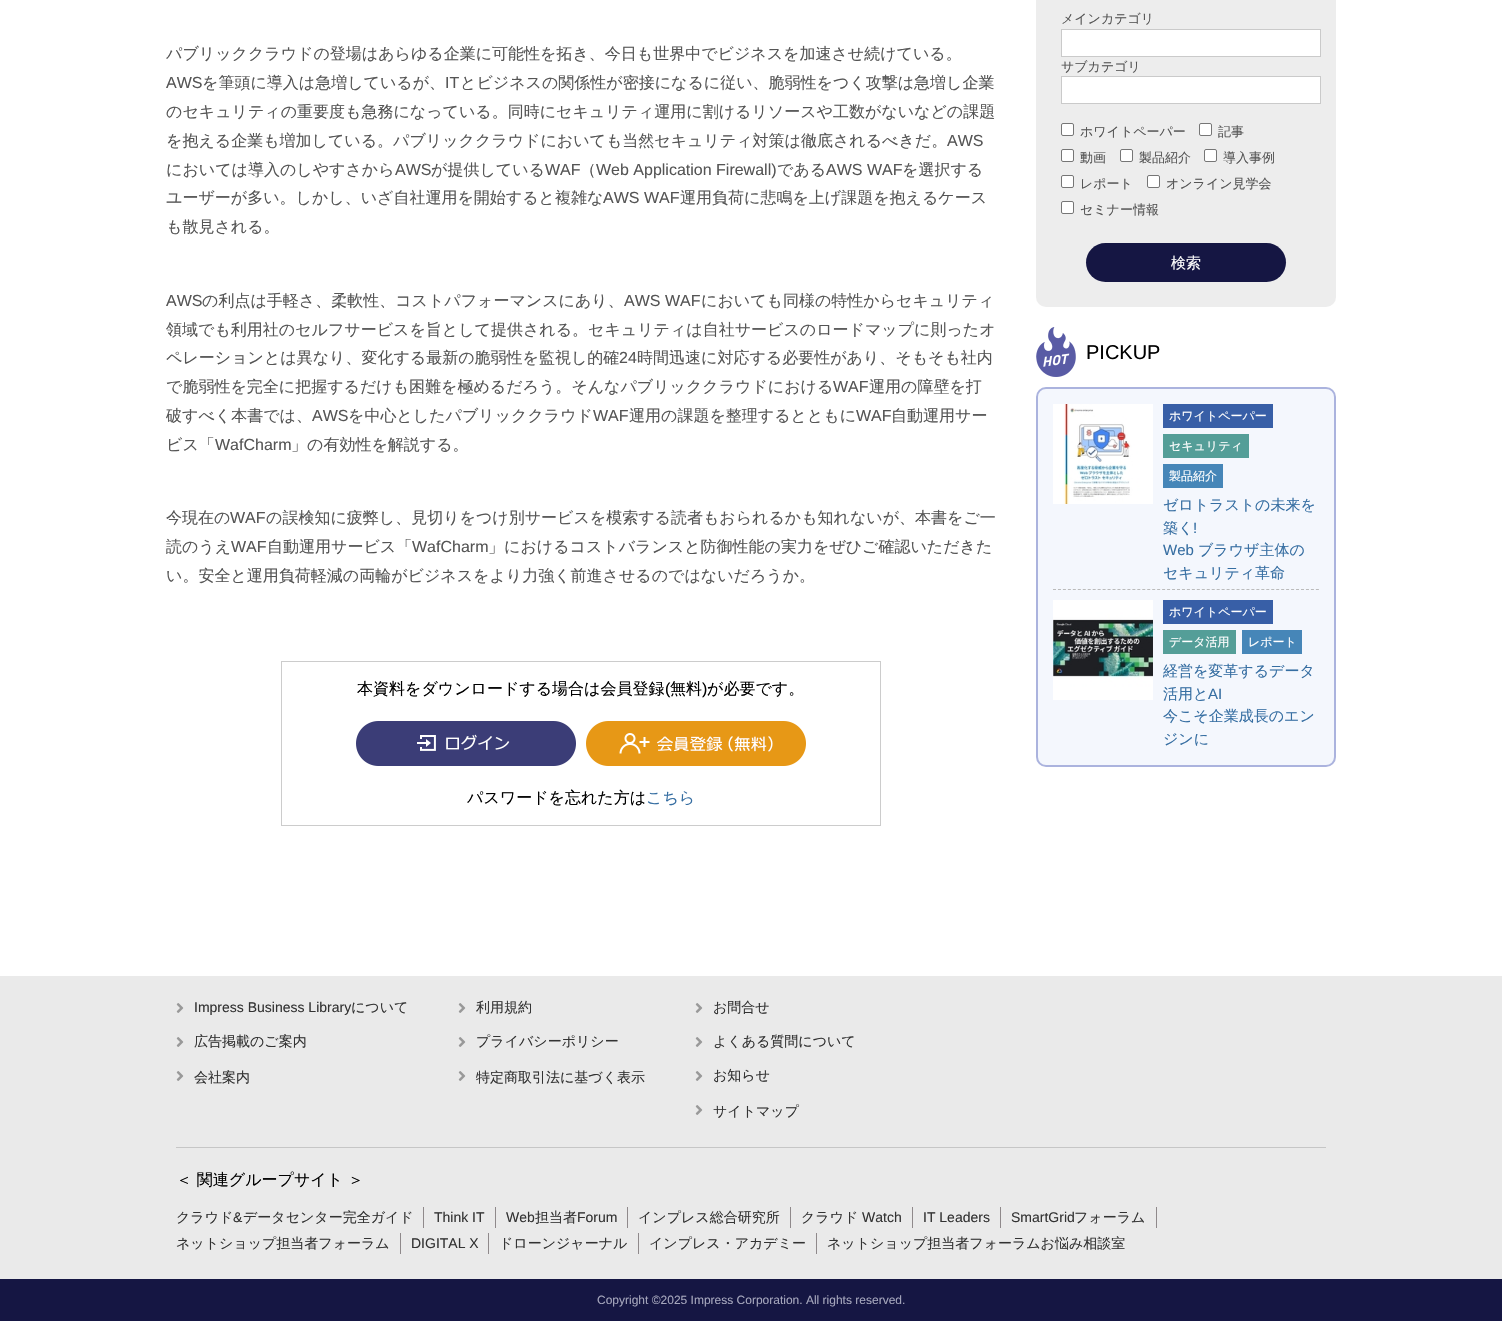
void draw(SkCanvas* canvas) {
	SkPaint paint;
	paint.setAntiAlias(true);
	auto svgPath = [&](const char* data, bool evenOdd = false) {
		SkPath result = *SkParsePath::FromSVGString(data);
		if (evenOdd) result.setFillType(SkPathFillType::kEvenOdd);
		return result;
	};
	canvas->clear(0xffffffff);
	SkFont f1(fontMgr->matchFamilyStyle("WenQuanYi Zen Hei", SkFontStyle(500, SkFontStyle::kNormal_Width, SkFontStyle::kUpright_Slant)), 16);
	f1.setSubpixel(true);
	paint.setColor(0xff555555);
	canvas->drawString("パブリッククラウドの登場はあらゆる企業に可能性を拓き、今日も世界中でビジネスを加速させ続けている。", 166, 59, f1, paint);
	SkFont f2(fontMgr->matchFamilyStyle("Liberation Sans", SkFontStyle::Normal()), 16);
	f2.setSubpixel(true);
	canvas->drawString("AWS", 166, 88, f2, paint);
	canvas->drawString("を筆頭に導入は急増しているが、", 202, 88, f1, paint);
	canvas->drawString("IT", 445, 88, f2, paint);
	canvas->drawString("とビジネスの関係性が密接になるに従い、脆弱性をつく攻撃は急増し企業", 460, 88, f1, paint);
	canvas->drawString("のセキュリティの重要度も急務になっている。同時にセキュリティ運用に割けるリソースや工数がないなどの課題", 166, 117, f1, paint);
	canvas->drawString("を抱える企業も増加している。パブリッククラウドにおいても当然セキュリティ対策は徹底されるべきだ。", 166, 146, f1, paint);
	canvas->drawString("AWS", 947, 146, f2, paint);
	canvas->drawString("においては導入のしやすさから", 166, 175, f1, paint);
	canvas->drawString("AWS", 395, 175, f2, paint);
	canvas->drawString("が提供している", 431, 175, f1, paint);
	canvas->drawString("WAF", 545, 175, f2, paint);
	canvas->drawString("（", 580, 175, f1, paint);
	canvas->drawString("Web Application Firewall)", 596, 175, f2, paint);
	canvas->drawString("である", 777, 175, f1, paint);
	canvas->drawString("AWS WAF", 826, 175, f2, paint);
	canvas->drawString("を選択する", 902, 175, f1, paint);
	canvas->drawString("ユーザーが多い。しかし、いざ自社運用を開始すると複雑な", 166, 203, f1, paint);
	canvas->drawString("AWS WAF", 603, 203, f2, paint);
	canvas->drawString("運用負荷に悲鳴を上げ課題を抱えるケース", 680, 203, f1, paint);
	canvas->drawString("も散見される。", 166, 232, f1, paint);
	canvas->drawString("AWS", 166, 306, f2, paint);
	canvas->drawString("の利点は手軽さ、柔軟性、コストパフォーマンスにあり、", 202, 306, f1, paint);
	canvas->drawString("AWS WAF", 624, 306, f2, paint);
	canvas->drawString("においても同様の特性からセキュリティ", 701, 306, f1, paint);
	canvas->drawString("領域でも利用社のセルフサービスを旨として提供される。セキュリティは自社サービスのロードマップに則ったオ", 166, 335, f1, paint);
	canvas->drawString("ペレーションとは異なり、変化する最新の脆弱性を監視し的確", 166, 363, f1, paint);
	canvas->drawString("24", 619, 363, f2, paint);
	canvas->drawString("時間迅速に対応する必要性があり、そもそも社内", 637, 363, f1, paint);
	canvas->drawString("で脆弱性を完全に把握するだけも困難を極めるだろう。そんなパブリッククラウドにおける", 166, 392, f1, paint);
	canvas->drawString("WAF", 833, 392, f2, paint);
	canvas->drawString("運用の障壁を打", 869, 392, f1, paint);
	canvas->drawString("破すべく本書では、", 166, 421, f1, paint);
	canvas->drawString("AWS", 312, 421, f2, paint);
	canvas->drawString("を中心としたパブリッククラウド", 348, 421, f1, paint);
	canvas->drawString("WAF", 593, 421, f2, paint);
	canvas->drawString("運用の課題を整理するとともに", 629, 421, f1, paint);
	canvas->drawString("WAF", 856, 421, f2, paint);
	canvas->drawString("自動運用サー", 891, 421, f1, paint);
	canvas->drawString("ビス「", 166, 450, f1, paint);
	canvas->drawString("WafCharm", 215, 450, f2, paint);
	canvas->drawString("」の有効性を解説する。", 291, 450, f1, paint);
	canvas->drawString("今現在の", 166, 523, f1, paint);
	canvas->drawString("WAF", 230, 523, f2, paint);
	canvas->drawString("の誤検知に疲弊し、見切りをつけ別サービスを模索する読者もおられるかも知れないが、本書をご一", 266, 523, f1, paint);
	canvas->drawString("読のうえ", 166, 552, f1, paint);
	canvas->drawString("WAF", 231, 552, f2, paint);
	canvas->drawString("自動運用サービス「", 267, 552, f1, paint);
	canvas->drawString("WafCharm", 412, 552, f2, paint);
	canvas->drawString("」におけるコストバランスと防御性能の実力をぜひご確認いただきた", 488, 552, f1, paint);
	canvas->drawString("い。安全と運用負荷軽減の両輪がビジネスをより力強く前進させるのではないだろうか。", 166, 581, f1, paint);
	paint.setStroke(true);
	paint.setStrokeWidth(1);
	paint.setColor(0xffcccccc);
	canvas->drawRect(SkRect::MakeXYWH(281.5, 661.5, 599, 164), paint);
	paint.setStroke(false);
	paint.setColor(0xff000000);
	canvas->drawString("本資料をダウンロードする場合は会員登録", 357, 694, f1, paint);
	canvas->drawString("(", 665, 694, f2, paint);
	canvas->drawString("無料", 670, 694, f1, paint);
	canvas->drawString(")", 702, 694, f2, paint);
	canvas->drawString("が必要です。", 707, 694, f1, paint);
	canvas->drawImageRect(SkImages::DeferredFromEncodedData(SkData::MakeFromFileName("img1.png")), SkRect::MakeXYWH(356, 721, 220, 45), SkSamplingOptions());
	canvas->drawImageRect(SkImages::DeferredFromEncodedData(SkData::MakeFromFileName("img2.png")), SkRect::MakeXYWH(586, 721, 220, 45), SkSamplingOptions());
	canvas->drawString("パスワードを忘れた方は", 467, 803, f1, paint);
	paint.setColor(0xff366ea2);
	canvas->drawString("こちら", 646, 803, f1, paint);
	paint.setColor(0xffededed);
	canvas->drawRoundRect(SkRect::MakeXYWH(1036, -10, 300, 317), 10, 10, paint);
	SkFont f3(fontMgr->matchFamilyStyle("WenQuanYi Zen Hei", SkFontStyle(500, SkFontStyle::kNormal_Width, SkFontStyle::kUpright_Slant)), 13);
	f3.setSubpixel(true);
	paint.setColor(0xff555555);
	canvas->drawString("メインカテゴリ", 1061, 23, f3, paint);
	paint.setColor(0xffffffff);
	canvas->drawRect(SkRect::MakeXYWH(1061.5, 29.5, 259, 27), paint);
	paint.setStroke(true);
	paint.setColor(0xffcacaca);
	canvas->drawRect(SkRect::MakeXYWH(1061.5, 29.5, 259, 27), paint);
	paint.setStroke(false);
	paint.setColor(0xff555555);
	canvas->drawString("サブカテゴリ", 1061, 71, f3, paint);
	paint.setColor(0xffffffff);
	canvas->drawRect(SkRect::MakeXYWH(1061.5, 76.5, 259, 27), paint);
	paint.setStroke(true);
	paint.setColor(0xffcacaca);
	canvas->drawRect(SkRect::MakeXYWH(1061.5, 76.5, 259, 27), paint);
	paint.setStroke(false);
	paint.setColor(0xffffffff);
	canvas->drawRoundRect(SkRect::MakeXYWH(1061.5, 123.5, 12, 12), 1.5, 1.5, paint);
	paint.setStroke(true);
	paint.setColor(0xff767676);
	canvas->drawRoundRect(SkRect::MakeXYWH(1061.5, 123.5, 12, 12), 1.5, 1.5, paint);
	paint.setStroke(false);
	paint.setColor(0xff555555);
	canvas->drawString("ホワイトペーパー", 1080, 136, f3, paint);
	paint.setColor(0xffffffff);
	canvas->drawRoundRect(SkRect::MakeXYWH(1199.5, 123.5, 12, 12), 1.5, 1.5, paint);
	paint.setStroke(true);
	paint.setColor(0xff767676);
	canvas->drawRoundRect(SkRect::MakeXYWH(1199.5, 123.5, 12, 12), 1.5, 1.5, paint);
	paint.setStroke(false);
	paint.setColor(0xff555555);
	canvas->drawString("記事", 1218, 136, f3, paint);
	paint.setColor(0xffffffff);
	canvas->drawRoundRect(SkRect::MakeXYWH(1061.5, 149.5, 12, 12), 1.5, 1.5, paint);
	paint.setStroke(true);
	paint.setColor(0xff767676);
	canvas->drawRoundRect(SkRect::MakeXYWH(1061.5, 149.5, 12, 12), 1.5, 1.5, paint);
	paint.setStroke(false);
	paint.setColor(0xff555555);
	canvas->drawString("動画", 1080, 162, f3, paint);
	paint.setColor(0xffffffff);
	canvas->drawRoundRect(SkRect::MakeXYWH(1120.5, 149.5, 12, 12), 1.5, 1.5, paint);
	paint.setStroke(true);
	paint.setColor(0xff767676);
	canvas->drawRoundRect(SkRect::MakeXYWH(1120.5, 149.5, 12, 12), 1.5, 1.5, paint);
	paint.setStroke(false);
	paint.setColor(0xff555555);
	canvas->drawString("製品紹介", 1139, 162, f3, paint);
	paint.setColor(0xffffffff);
	canvas->drawRoundRect(SkRect::MakeXYWH(1204.5, 149.5, 12, 12), 1.5, 1.5, paint);
	paint.setStroke(true);
	paint.setColor(0xff767676);
	canvas->drawRoundRect(SkRect::MakeXYWH(1204.5, 149.5, 12, 12), 1.5, 1.5, paint);
	paint.setStroke(false);
	paint.setColor(0xff555555);
	canvas->drawString("導入事例", 1223, 162, f3, paint);
	paint.setColor(0xffffffff);
	canvas->drawRoundRect(SkRect::MakeXYWH(1061.5, 175.5, 12, 12), 1.5, 1.5, paint);
	paint.setStroke(true);
	paint.setColor(0xff767676);
	canvas->drawRoundRect(SkRect::MakeXYWH(1061.5, 175.5, 12, 12), 1.5, 1.5, paint);
	paint.setStroke(false);
	paint.setColor(0xff555555);
	canvas->drawString("レポート", 1080, 188, f3, paint);
	paint.setColor(0xffffffff);
	canvas->drawRoundRect(SkRect::MakeXYWH(1147.5, 175.5, 12, 12), 1.5, 1.5, paint);
	paint.setStroke(true);
	paint.setColor(0xff767676);
	canvas->drawRoundRect(SkRect::MakeXYWH(1147.5, 175.5, 12, 12), 1.5, 1.5, paint);
	paint.setStroke(false);
	paint.setColor(0xff555555);
	canvas->drawString("オンライン見学会", 1166, 188, f3, paint);
	paint.setColor(0xffffffff);
	canvas->drawRoundRect(SkRect::MakeXYWH(1061.5, 201.5, 12, 12), 1.5, 1.5, paint);
	paint.setStroke(true);
	paint.setColor(0xff767676);
	canvas->drawRoundRect(SkRect::MakeXYWH(1061.5, 201.5, 12, 12), 1.5, 1.5, paint);
	paint.setStroke(false);
	paint.setColor(0xff555555);
	canvas->drawString("セミナー情報", 1080, 214, f3, paint);
	paint.setColor(0xff151643);
	canvas->drawRoundRect(SkRect::MakeXYWH(1086, 243, 200, 39), 19.5, 19.5, paint);
	SkFont f4(fontMgr->matchFamilyStyle("WenQuanYi Zen Hei", SkFontStyle(500, SkFontStyle::kNormal_Width, SkFontStyle::kUpright_Slant)), 15);
	f4.setSubpixel(true);
	paint.setColor(0xffffffff);
	canvas->drawString("検索", 1171, 268, f4, paint);
	canvas->drawImageRect(SkImages::DeferredFromEncodedData(SkData::MakeFromFileName("img3.png")), SkRect::MakeXYWH(1036, 327, 40, 50), SkSamplingOptions());
	SkFont f5(fontMgr->matchFamilyStyle("Liberation Sans", SkFontStyle::Normal()), 20);
	f5.setSubpixel(true);
	paint.setColor(0xff000000);
	canvas->drawString("PICKUP", 1086, 359, f5, paint);
	paint.setColor(0xfff4f7fd);
	canvas->drawRoundRect(SkRect::MakeXYWH(1037, 388, 298, 378), 9, 9, paint);
	paint.setStroke(true);
	paint.setStrokeWidth(2);
	paint.setColor(0xffabb3de);
	canvas->drawRoundRect(SkRect::MakeXYWH(1037, 388, 298, 378), 9, 9, paint);
	paint.setStrokeWidth(1);
	paint.setColor(0xffbbbbbb);
	paint.setPathEffect(SkDashPathEffect::Make({{3, 1.96f}}, 0));
	canvas->drawPath(svgPath("M1053 589.5H1319"), paint);
	paint.setPathEffect(nullptr);
	canvas->drawImageRect(SkImages::DeferredFromEncodedData(SkData::MakeFromFileName("img4.png")), SkRect::MakeXYWH(1053, 404, 100, 100), SkSamplingOptions());
	paint.setStroke(false);
	paint.setColor(0xff385fa7);
	canvas->drawRect(SkRect::MakeXYWH(1163, 404, 110, 24), paint);
	SkFont f6(fontMgr->matchFamilyStyle("WenQuanYi Zen Hei", SkFontStyle(500, SkFontStyle::kNormal_Width, SkFontStyle::kUpright_Slant)), 12);
	f6.setSubpixel(true);
	paint.setColor(0xffffffff);
	canvas->drawString("ホワイトペーパー", 1169, 420, f6, paint);
	paint.setColor(0xff549e98);
	canvas->drawRect(SkRect::MakeXYWH(1163, 434, 86, 24), paint);
	paint.setColor(0xffffffff);
	canvas->drawString("セキュリティ", 1169, 450, f6, paint);
	paint.setColor(0xff4686b8);
	canvas->drawRect(SkRect::MakeXYWH(1163, 464, 60, 24), paint);
	paint.setColor(0xffffffff);
	canvas->drawString("製品紹介", 1169, 480, f6, paint);
	paint.setColor(0xff366ea2);
	canvas->drawString("ゼロトラストの未来を", 1163, 510, f4, paint);
	canvas->drawString("築く", 1163, 533, f4, paint);
	SkFont f7(fontMgr->matchFamilyStyle("Liberation Sans", SkFontStyle::Normal()), 15);
	f7.setSubpixel(true);
	canvas->drawString("!", 1193, 533, f7, paint);
	canvas->drawString("Web", 1163, 555, f7, paint);
	canvas->drawString("ブラウザ主体の", 1198, 555, f4, paint);
	canvas->drawString("セキュリティ革命", 1163, 578, f4, paint);
	canvas->drawImageRect(SkImages::DeferredFromEncodedData(SkData::MakeFromFileName("img5.png")), SkRect::MakeXYWH(1053, 600, 100, 100), SkSamplingOptions());
	paint.setColor(0xff385fa7);
	canvas->drawRect(SkRect::MakeXYWH(1163, 600, 110, 24), paint);
	paint.setColor(0xffffffff);
	canvas->drawString("ホワイトペーパー", 1169, 616, f6, paint);
	paint.setColor(0xff549e98);
	canvas->drawRect(SkRect::MakeXYWH(1163, 630, 73, 24), paint);
	paint.setColor(0xffffffff);
	canvas->drawString("データ活用", 1169, 646, f6, paint);
	paint.setColor(0xff4686b8);
	canvas->drawRect(SkRect::MakeXYWH(1242, 630, 60, 24), paint);
	paint.setColor(0xffffffff);
	canvas->drawString("レポート", 1248, 646, f6, paint);
	paint.setColor(0xff366ea2);
	canvas->drawString("経営を変革するデータ", 1163, 676, f4, paint);
	canvas->drawString("活用と", 1163, 699, f4, paint);
	canvas->drawString("AI", 1208, 699, f7, paint);
	canvas->drawString("今こそ企業成長のエン", 1163, 721, f4, paint);
	canvas->drawString("ジンに", 1163, 744, f4, paint);
	paint.setColor(0xffeaeaea);
	canvas->drawRect(SkRect::MakeXYWH(0, 976, 1502, 303), paint);
	paint.setColor(0xffc6c6c6);
	canvas->drawRect(SkRect::MakeXYWH(176, 1147, 1150, 1), paint);
	canvas->drawImageRect(SkImages::DeferredFromEncodedData(SkData::MakeFromFileName("img6.png")), SkRect::MakeXYWH(176, 1003, 8, 10), SkSamplingOptions());
	SkFont f8(fontMgr->matchFamilyStyle("Liberation Sans", SkFontStyle::Normal()), 14);
	f8.setSubpixel(true);
	paint.setColor(0xff333333);
	canvas->drawString("Impress Business Library", 194, 1012, f8, paint);
	SkFont f9(fontMgr->matchFamilyStyle("WenQuanYi Zen Hei", SkFontStyle(500, SkFontStyle::kNormal_Width, SkFontStyle::kUpright_Slant)), 14);
	f9.setSubpixel(true);
	canvas->drawString("について", 351, 1012, f9, paint);
	canvas->drawImageRect(SkImages::DeferredFromEncodedData(SkData::MakeFromFileName("img6.png")), SkRect::MakeXYWH(176, 1037, 8, 10), SkSamplingOptions());
	canvas->drawString("広告掲載のご案内", 194, 1046, f9, paint);
	canvas->drawImageRect(SkImages::DeferredFromEncodedData(SkData::MakeFromFileName("img6.png")), SkRect::MakeXYWH(176, 1071, 8, 10), SkSamplingOptions());
	canvas->drawString("会社案内", 194, 1082, f9, paint);
	canvas->drawImageRect(SkImages::DeferredFromEncodedData(SkData::MakeFromFileName("img6.png")), SkRect::MakeXYWH(458, 1003, 8, 10), SkSamplingOptions());
	canvas->drawString("利用規約", 476, 1012, f9, paint);
	canvas->drawImageRect(SkImages::DeferredFromEncodedData(SkData::MakeFromFileName("img6.png")), SkRect::MakeXYWH(458, 1037, 8, 10), SkSamplingOptions());
	canvas->drawString("プライバシーポリシー", 476, 1046, f9, paint);
	canvas->drawImageRect(SkImages::DeferredFromEncodedData(SkData::MakeFromFileName("img6.png")), SkRect::MakeXYWH(458, 1071, 8, 10), SkSamplingOptions());
	canvas->drawString("特定商取引法に基づく表示", 476, 1082, f9, paint);
	canvas->drawImageRect(SkImages::DeferredFromEncodedData(SkData::MakeFromFileName("img6.png")), SkRect::MakeXYWH(695, 1003, 8, 10), SkSamplingOptions());
	canvas->drawString("お問合せ", 713, 1012, f9, paint);
	canvas->drawImageRect(SkImages::DeferredFromEncodedData(SkData::MakeFromFileName("img6.png")), SkRect::MakeXYWH(695, 1037, 8, 10), SkSamplingOptions());
	canvas->drawString("よくある質問について", 713, 1046, f9, paint);
	canvas->drawImageRect(SkImages::DeferredFromEncodedData(SkData::MakeFromFileName("img6.png")), SkRect::MakeXYWH(695, 1071, 8, 10), SkSamplingOptions());
	canvas->drawString("お知らせ", 713, 1080, f9, paint);
	canvas->drawImageRect(SkImages::DeferredFromEncodedData(SkData::MakeFromFileName("img6.png")), SkRect::MakeXYWH(695, 1105, 8, 10), SkSamplingOptions());
	canvas->drawString("サイトマップ", 713, 1116, f9, paint);
	paint.setColor(0xff000000);
	canvas->drawString("＜ 関連グループサイト ＞", 176, 1185, f1, paint);
	paint.setColor(0xff8f898b);
	canvas->drawRect(SkRect::MakeXYWH(423, 1207, 1, 21), paint);
	paint.setColor(0xff333333);
	canvas->drawString("クラウド", 176, 1222, f9, paint);
	canvas->drawString("&", 233, 1222, f8, paint);
	canvas->drawString("データセンター完全ガイド", 243, 1222, f9, paint);
	paint.setColor(0xff8f898b);
	canvas->drawRect(SkRect::MakeXYWH(495, 1207, 1, 21), paint);
	paint.setColor(0xff333333);
	canvas->drawString("Think IT", 434, 1222, f8, paint);
	paint.setColor(0xff8f898b);
	canvas->drawRect(SkRect::MakeXYWH(627, 1207, 1, 21), paint);
	paint.setColor(0xff333333);
	canvas->drawString("Web", 506, 1222, f8, paint);
	canvas->drawString("担当者", 535, 1222, f9, paint);
	canvas->drawString("Forum", 577, 1222, f8, paint);
	paint.setColor(0xff8f898b);
	canvas->drawRect(SkRect::MakeXYWH(790, 1207, 1, 21), paint);
	paint.setColor(0xff333333);
	canvas->drawString("インプレス総合研究所", 638, 1222, f9, paint);
	paint.setColor(0xff8f898b);
	canvas->drawRect(SkRect::MakeXYWH(912, 1207, 1, 21), paint);
	paint.setColor(0xff333333);
	canvas->drawString("クラウド", 801, 1222, f9, paint);
	canvas->drawString("Watch", 862, 1222, f8, paint);
	paint.setColor(0xff8f898b);
	canvas->drawRect(SkRect::MakeXYWH(1000, 1207, 1, 21), paint);
	paint.setColor(0xff333333);
	canvas->drawString("IT Leaders", 923, 1222, f8, paint);
	paint.setColor(0xff8f898b);
	canvas->drawRect(SkRect::MakeXYWH(1156, 1207, 1, 21), paint);
	paint.setColor(0xff333333);
	canvas->drawString("SmartGrid", 1011, 1222, f8, paint);
	canvas->drawString("フォーラム", 1074, 1222, f9, paint);
	paint.setColor(0xff8f898b);
	canvas->drawRect(SkRect::MakeXYWH(400, 1233, 1, 21), paint);
	paint.setColor(0xff333333);
	canvas->drawString("ネットショップ担当者フォーラム", 176, 1248, f9, paint);
	paint.setColor(0xff8f898b);
	canvas->drawRect(SkRect::MakeXYWH(488, 1233, 1, 21), paint);
	paint.setColor(0xff333333);
	canvas->drawString("DIGITAL X", 411, 1248, f8, paint);
	paint.setColor(0xff8f898b);
	canvas->drawRect(SkRect::MakeXYWH(638, 1233, 1, 21), paint);
	paint.setColor(0xff333333);
	canvas->drawString("ドローンジャーナル", 499, 1248, f9, paint);
	paint.setColor(0xff8f898b);
	canvas->drawRect(SkRect::MakeXYWH(816, 1233, 1, 21), paint);
	paint.setColor(0xff333333);
	canvas->drawString("インプレス・アカデミー", 649, 1248, f9, paint);
	canvas->drawString("ネットショップ担当者フォーラムお悩み相談室", 827, 1248, f9, paint);
	paint.setColor(0xff151643);
	canvas->drawRect(SkRect::MakeXYWH(0, 1279, 1502, 42), paint);
	SkFont f10(fontMgr->matchFamilyStyle("Liberation Sans", SkFontStyle::Normal()), 12);
	f10.setSubpixel(true);
	paint.setColor(0xffa5a6bc);
	canvas->drawString("Copyright ©2025 Impress Corporation. All rights reserved.", 597, 1304, f10, paint);
}
